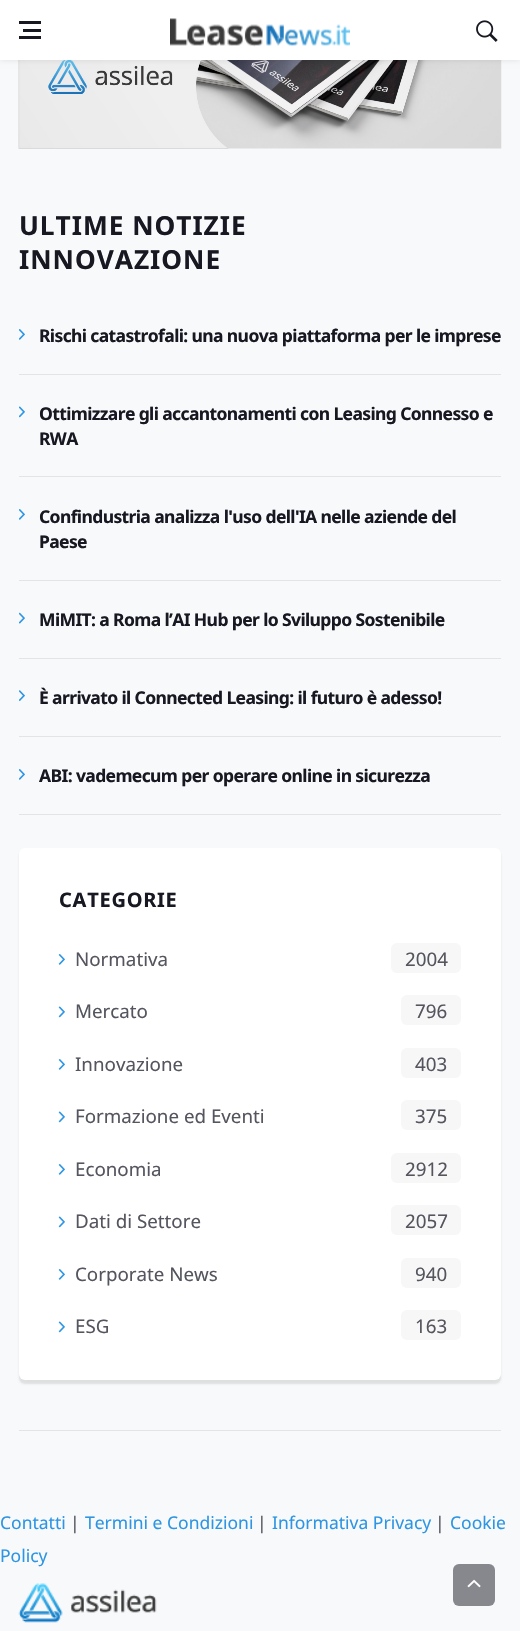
void draw(SkCanvas* canvas) {
	SkPaint paint;
	paint.setAntiAlias(true);
	auto spacedText = [&](const char* s, float x, float y, const SkFont& font, const SkPaint& ink, float letter, float word) {
		std::vector<SkGlyphID> glyphs(font.countText(s, strlen(s), SkTextEncoding::kUTF8));
		std::vector<float> xs(glyphs.size());
		font.textToGlyphs(s, strlen(s), SkTextEncoding::kUTF8, glyphs);
		font.getXPos(glyphs, xs, x);
		float extra = 0;
		for (size_t i = 0; i < glyphs.size(); i++) {
			xs[i] += extra;
			extra += letter + word * (glyphs[i] == font.unicharToGlyph(' '));
		}
		canvas->drawTextBlob(SkTextBlob::MakeFromPosHGlyphs(glyphs, xs, y, font), 0, 0, ink);
	};
	canvas->clear(0xfff8f9fa);
	canvas->drawImageRect(SkImages::DeferredFromEncodedData(SkData::MakeFromFileName("img3.png")), SkRect::MakeXYWH(18, 60, 484, 89), SkSamplingOptions());
	paint.setColor(0x1a000000);
	paint.setMaskFilter(SkMaskFilter::MakeBlur(kNormal_SkBlurStyle, 3));
	canvas->drawRect(SkRect::MakeXYWH(0, 0, 520, 60), paint);
	paint.setMaskFilter(nullptr);
	paint.setColor(0xffffffff);
	canvas->drawRect(SkRect::MakeXYWH(0, 0, 520, 60), paint);
	paint.setColor(0xff171821);
	canvas->drawRect(SkRect::MakeXYWH(23, 29, 18, 3), paint);
	canvas->drawRect(SkRect::MakeXYWH(19, 21, 22, 3), paint);
	canvas->drawRect(SkRect::MakeXYWH(19, 36, 22, 3), paint);
	canvas->drawImageRect(SkImages::DeferredFromEncodedData(SkData::MakeFromFileName("img1.png")), SkRect::MakeXYWH(170, 18, 180, 29), SkSamplingOptions());
	canvas->drawImageRect(SkImages::DeferredFromEncodedData(SkData::MakeFromFileName("img2.png")), SkRect::MakeXYWH(476, 20, 22, 22), SkSamplingOptions());
	SkFont f1(fontMgr->matchFamilyStyle("Noto Sans", SkFontStyle::Bold()), 26.25);
	f1.setSubpixel(true);
	spacedText("ULTIME NOTIZIE", 19, 235, f1, paint, 1, 0);
	spacedText("INNOVAZIONE", 19, 269, f1, paint, 1, 0);
	paint.setColor(0xffe3e4e8);
	canvas->drawRect(SkRect::MakeXYWH(19, 374, 482, 1), paint);
	canvas->drawImageRect(SkImages::DeferredFromEncodedData(SkData::MakeFromFileName("img4.png")), SkRect::MakeXYWH(19, 329, 6, 11), SkSamplingOptions());
	SkFont f2(fontMgr->matchFamilyStyle("Noto Sans", SkFontStyle::Bold()), 17.5);
	f2.setSubpixel(true);
	paint.setColor(0xff171821);
	spacedText("Rischi catastrofali: una nuova piattaforma per le imprese", 39, 342, f2, paint, -0.62, 0);
	paint.setColor(0xffe3e4e8);
	canvas->drawRect(SkRect::MakeXYWH(19, 476, 482, 1), paint);
	canvas->drawImageRect(SkImages::DeferredFromEncodedData(SkData::MakeFromFileName("img5.png")), SkRect::MakeXYWH(19, 406, 6, 12), SkSamplingOptions());
	paint.setColor(0xff171821);
	spacedText("Ottimizzare gli accantonamenti con Leasing Connesso e", 39, 420, f2, paint, -0.62, 0);
	spacedText("RWA", 39, 445, f2, paint, -0.62, 0);
	paint.setColor(0xffe3e4e8);
	canvas->drawRect(SkRect::MakeXYWH(19, 580, 482, 1), paint);
	canvas->drawImageRect(SkImages::DeferredFromEncodedData(SkData::MakeFromFileName("img4.png")), SkRect::MakeXYWH(19, 509, 6, 11), SkSamplingOptions());
	paint.setColor(0xff171821);
	spacedText("Confindustria analizza l'uso dell'IA nelle aziende del", 39, 523, f2, paint, -0.62, 0);
	spacedText("Paese", 39, 548, f2, paint, -0.62, 0);
	paint.setColor(0xffe3e4e8);
	canvas->drawRect(SkRect::MakeXYWH(19, 658, 482, 1), paint);
	canvas->drawImageRect(SkImages::DeferredFromEncodedData(SkData::MakeFromFileName("img6.png")), SkRect::MakeXYWH(19, 612, 6, 12), SkSamplingOptions());
	paint.setColor(0xff171821);
	spacedText("MiMIT: a Roma l’AI Hub per lo Sviluppo Sostenibile", 39, 626, f2, paint, -0.62, 0);
	paint.setColor(0xffe3e4e8);
	canvas->drawRect(SkRect::MakeXYWH(19, 736, 482, 1), paint);
	canvas->drawImageRect(SkImages::DeferredFromEncodedData(SkData::MakeFromFileName("img7.png")), SkRect::MakeXYWH(19, 690, 6, 12), SkSamplingOptions());
	paint.setColor(0xff171821);
	spacedText("È arrivato il Connected Leasing: il futuro è adesso!", 39, 704, f2, paint, -0.62, 0);
	paint.setColor(0xffe3e4e8);
	canvas->drawRect(SkRect::MakeXYWH(19, 814, 482, 1), paint);
	canvas->drawImageRect(SkImages::DeferredFromEncodedData(SkData::MakeFromFileName("img4.png")), SkRect::MakeXYWH(19, 769, 6, 11), SkSamplingOptions());
	paint.setColor(0xff171821);
	spacedText("ABI: vademecum per operare online in sicurezza", 39, 782, f2, paint, -0.62, 0);
	paint.setColor(0x1a000000);
	paint.setMaskFilter(SkMaskFilter::MakeBlur(kNormal_SkBlurStyle, 1));
	canvas->drawRoundRect(SkRect::MakeXYWH(19, 851, 482, 533), 6, 6, paint);
	paint.setMaskFilter(nullptr);
	paint.setColor(0xffffffff);
	canvas->drawRoundRect(SkRect::MakeXYWH(19, 848, 482, 532), 6, 6, paint);
	SkFont f3(fontMgr->matchFamilyStyle("Noto Sans", SkFontStyle::Bold()), 20);
	f3.setSubpixel(true);
	paint.setColor(0xff171821);
	spacedText("CATEGORIE", 59, 907, f3, paint, 0.75, 0);
	canvas->drawImageRect(SkImages::DeferredFromEncodedData(SkData::MakeFromFileName("img8.png")), SkRect::MakeXYWH(58, 954, 7, 11), SkSamplingOptions());
	SkFont f4(fontMgr->matchFamilyStyle("Noto Sans", SkFontStyle::Normal()), 18.75);
	f4.setSubpixel(true);
	paint.setColor(0xff54555e);
	canvas->drawString("Normativa", 75, 966, f4, paint);
	paint.setColor(0xfff7f7f7);
	canvas->drawRoundRect(SkRect::MakeXYWH(391, 943, 70, 30), 6, 6, paint);
	paint.setColor(0xff54555e);
	canvas->drawString("2004", 405, 966, f4, paint);
	canvas->drawImageRect(SkImages::DeferredFromEncodedData(SkData::MakeFromFileName("img9.png")), SkRect::MakeXYWH(58, 1006, 7, 12), SkSamplingOptions());
	canvas->drawString("Mercato", 75, 1018, f4, paint);
	paint.setColor(0xfff7f7f7);
	canvas->drawRoundRect(SkRect::MakeXYWH(401, 995, 60, 30), 6, 6, paint);
	paint.setColor(0xff54555e);
	canvas->drawString("796", 415, 1018, f4, paint);
	canvas->drawImageRect(SkImages::DeferredFromEncodedData(SkData::MakeFromFileName("img8.png")), SkRect::MakeXYWH(58, 1059, 7, 11), SkSamplingOptions());
	canvas->drawString("Innovazione", 75, 1071, f4, paint);
	paint.setColor(0xfff7f7f7);
	canvas->drawRoundRect(SkRect::MakeXYWH(401, 1048, 60, 30), 6, 6, paint);
	paint.setColor(0xff54555e);
	canvas->drawString("403", 415, 1071, f4, paint);
	canvas->drawImageRect(SkImages::DeferredFromEncodedData(SkData::MakeFromFileName("img9.png")), SkRect::MakeXYWH(58, 1111, 7, 12), SkSamplingOptions());
	canvas->drawString("Formazione ed Eventi", 75, 1123, f4, paint);
	paint.setColor(0xfff7f7f7);
	canvas->drawRoundRect(SkRect::MakeXYWH(401, 1100, 60, 30), 6, 6, paint);
	paint.setColor(0xff54555e);
	canvas->drawString("375", 415, 1123, f4, paint);
	canvas->drawImageRect(SkImages::DeferredFromEncodedData(SkData::MakeFromFileName("img8.png")), SkRect::MakeXYWH(58, 1164, 7, 11), SkSamplingOptions());
	canvas->drawString("Economia", 75, 1176, f4, paint);
	paint.setColor(0xfff7f7f7);
	canvas->drawRoundRect(SkRect::MakeXYWH(391, 1153, 70, 30), 6, 6, paint);
	paint.setColor(0xff54555e);
	canvas->drawString("2912", 405, 1176, f4, paint);
	canvas->drawImageRect(SkImages::DeferredFromEncodedData(SkData::MakeFromFileName("img9.png")), SkRect::MakeXYWH(58, 1216, 7, 12), SkSamplingOptions());
	canvas->drawString("Dati di Settore", 75, 1228, f4, paint);
	paint.setColor(0xfff7f7f7);
	canvas->drawRoundRect(SkRect::MakeXYWH(391, 1205, 70, 30), 6, 6, paint);
	paint.setColor(0xff54555e);
	canvas->drawString("2057", 405, 1228, f4, paint);
	canvas->drawImageRect(SkImages::DeferredFromEncodedData(SkData::MakeFromFileName("img8.png")), SkRect::MakeXYWH(58, 1269, 7, 11), SkSamplingOptions());
	canvas->drawString("Corporate News", 75, 1281, f4, paint);
	paint.setColor(0xfff7f7f7);
	canvas->drawRoundRect(SkRect::MakeXYWH(401, 1258, 60, 30), 6, 6, paint);
	paint.setColor(0xff54555e);
	canvas->drawString("940", 415, 1281, f4, paint);
	canvas->drawImageRect(SkImages::DeferredFromEncodedData(SkData::MakeFromFileName("img9.png")), SkRect::MakeXYWH(58, 1321, 7, 12), SkSamplingOptions());
	canvas->drawString("ESG", 75, 1333, f4, paint);
	paint.setColor(0xfff7f7f7);
	canvas->drawRoundRect(SkRect::MakeXYWH(401, 1310, 60, 30), 6, 6, paint);
	paint.setColor(0xff54555e);
	canvas->drawString("163", 415, 1333, f4, paint);
	paint.setColor(0xffe3e4e8);
	canvas->drawRect(SkRect::MakeXYWH(19, 1430, 482, 1), paint);
	SkFont f5(fontMgr->matchFamilyStyle("Noto Sans", SkFontStyle::Normal()), 17.5);
	f5.setSubpixel(true);
	paint.setColor(0xff2d95e3);
	canvas->drawString("Contatti", 0, 1529, f5, paint);
	paint.setColor(0xff54555e);
	canvas->drawString("|", 70, 1529, f5, paint);
	paint.setColor(0xff2d95e3);
	canvas->drawString("Termini e Condizioni", 85, 1529, f5, paint);
	paint.setColor(0xff54555e);
	canvas->drawString("|", 257, 1529, f5, paint);
	paint.setColor(0xff2d95e3);
	canvas->drawString("Informativa Privacy", 272, 1529, f5, paint);
	paint.setColor(0xff54555e);
	canvas->drawString("|", 435, 1529, f5, paint);
	paint.setColor(0xff2d95e3);
	canvas->drawString("Cookie", 450, 1529, f5, paint);
	canvas->drawString("Policy", 0, 1562, f5, paint);
	canvas->drawImageRect(SkImages::DeferredFromEncodedData(SkData::MakeFromFileName("img10.png")), SkRect::MakeXYWH(18, 1583, 139, 40), SkSamplingOptions());
	paint.setColor(0xff87888d);
	canvas->drawRoundRect(SkRect::MakeXYWH(453, 1564, 42, 42), 6, 6, paint);
	canvas->drawImageRect(SkImages::DeferredFromEncodedData(SkData::MakeFromFileName("img11.png")), SkRect::MakeXYWH(467, 1579, 14, 9), SkSamplingOptions());
}
